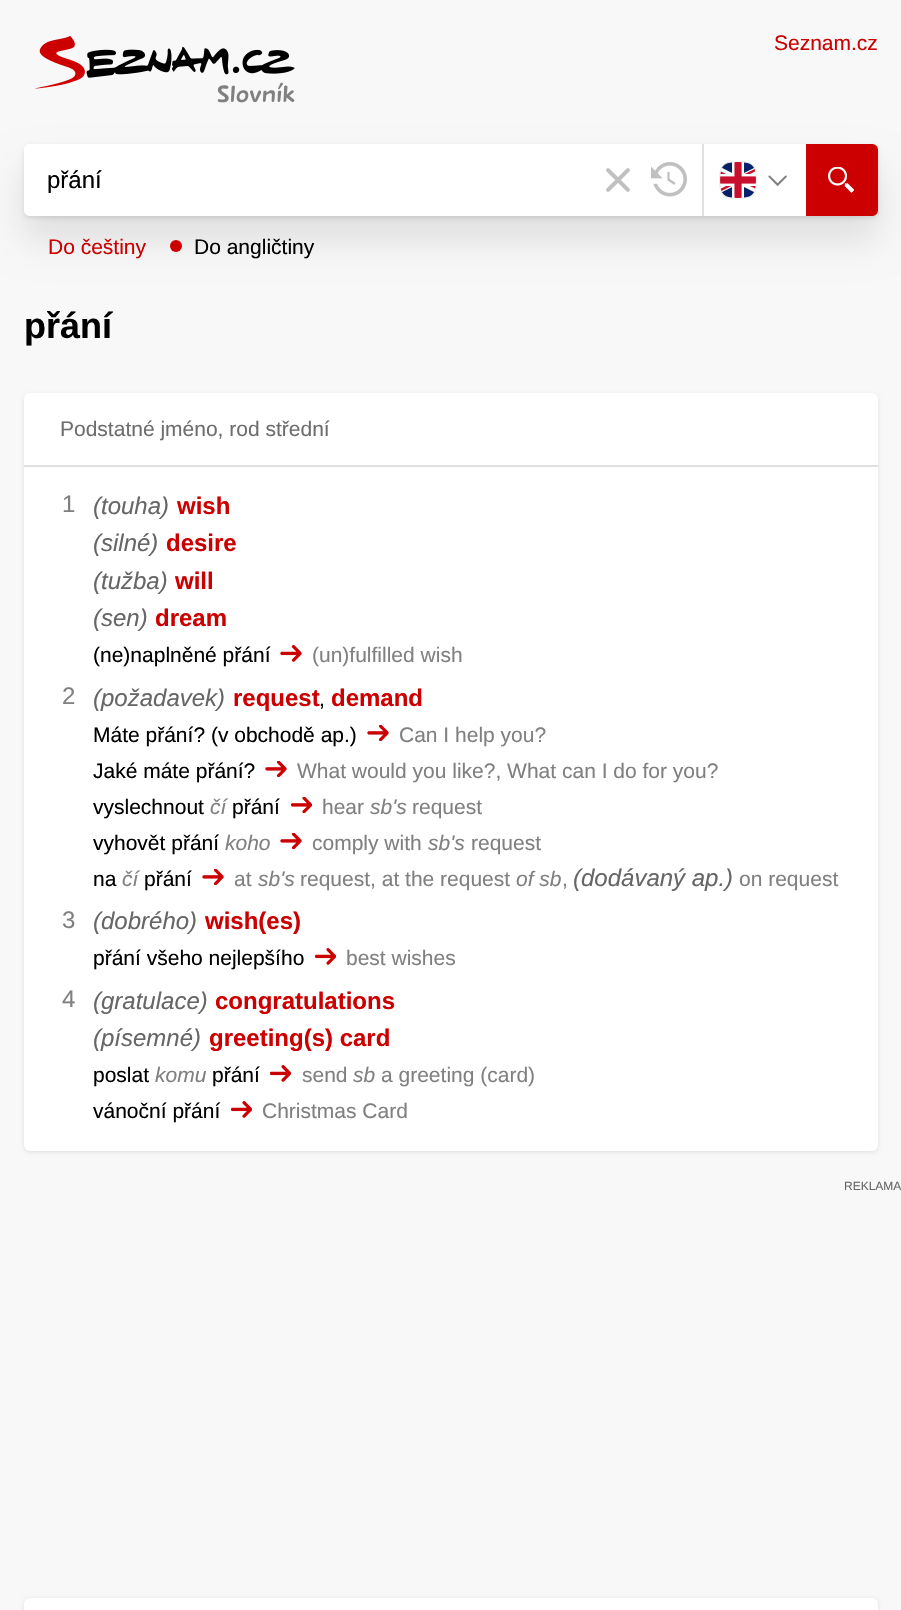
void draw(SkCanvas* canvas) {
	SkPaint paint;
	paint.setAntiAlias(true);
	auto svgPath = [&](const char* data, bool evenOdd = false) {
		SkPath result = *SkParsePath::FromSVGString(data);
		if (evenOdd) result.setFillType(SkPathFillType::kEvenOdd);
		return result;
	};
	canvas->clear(0xfff8f8f8);
	canvas->drawImageRect(SkImages::DeferredFromEncodedData(SkData::MakeFromFileName("img1.png")), SkRect::MakeXYWH(35, 36, 260, 67), SkSamplingOptions());
	SkFont f1(fontMgr->matchFamilyStyle("Liberation Sans", SkFontStyle::Normal()), 21);
	f1.setSubpixel(true);
	paint.setColor(0xffcc0000);
	canvas->drawString("Seznam.cz", 774, 50, f1, paint);
	paint.setColor(0x1a000000);
	paint.setMaskFilter(SkMaskFilter::MakeBlur(kNormal_SkBlurStyle, 2));
	canvas->drawRoundRect(SkRect::MakeXYWH(24, 146, 854, 72), 6, 6, paint);
	paint.setMaskFilter(nullptr);
	paint.setMaskFilter(SkMaskFilter::MakeBlur(kNormal_SkBlurStyle, 18));
	canvas->drawRoundRect(SkRect::MakeXYWH(24, 168, 854, 72), 6, 6, paint);
	paint.setMaskFilter(nullptr);
	paint.setColor(0xffffffff);
	canvas->drawRoundRect(SkRect::MakeXYWH(24, 144, 854, 72), 6, 6, paint);
	canvas->drawPath(svgPath("M30 144H600V216H30C26.5 216 24 213.5 24 210V150C24 146.5 26.5 144 30 144Z"), paint);
	SkFont f2(fontMgr->matchFamilyStyle("Liberation Sans", SkFontStyle::Normal()), 24);
	f2.setSubpixel(true);
	paint.setColor(0xff000000);
	canvas->drawString("přání", 47, 188, f2, paint);
	canvas->drawImageRect(SkImages::DeferredFromEncodedData(SkData::MakeFromFileName("img2.png")), SkRect::MakeXYWH(606, 168, 24, 24), SkSamplingOptions());
	canvas->drawImageRect(SkImages::DeferredFromEncodedData(SkData::MakeFromFileName("img3.png")), SkRect::MakeXYWH(651, 162, 36, 35), SkSamplingOptions());
	paint.setColor(0xffe0e0e0);
	canvas->drawRect(SkRect::MakeXYWH(702, 144, 2, 72), paint);
	canvas->drawImageRect(SkImages::DeferredFromEncodedData(SkData::MakeFromFileName("img4.png")), SkRect::MakeXYWH(719, 161, 39, 39), SkSamplingOptions());
	canvas->drawImageRect(SkImages::DeferredFromEncodedData(SkData::MakeFromFileName("img5.png")), SkRect::MakeXYWH(768, 175, 19, 11), SkSamplingOptions());
	paint.setColor(0xffcc0000);
	canvas->drawPath(svgPath("M806 144H872C875.5 144 878 146.5 878 150V210C878 213.5 875.5 216 872 216H806Z"), paint);
	canvas->drawImageRect(SkImages::DeferredFromEncodedData(SkData::MakeFromFileName("img6.png")), SkRect::MakeXYWH(828, 167, 26, 26), SkSamplingOptions());
	canvas->drawString("Do češtiny", 48, 254, f1, paint);
	canvas->drawCircle(176, 246, 6, paint);
	paint.setColor(0xff000000);
	canvas->drawString("Do angličtiny", 194, 254, f1, paint);
	SkFont f3(fontMgr->matchFamilyStyle("Liberation Sans", SkFontStyle::Bold()), 36);
	f3.setSubpixel(true);
	canvas->drawString("přání", 24, 338, f3, paint);
	paint.setColor(0x1a000000);
	paint.setMaskFilter(SkMaskFilter::MakeBlur(kNormal_SkBlurStyle, 2));
	canvas->drawRoundRect(SkRect::MakeXYWH(24, 395, 854, 757), 6, 6, paint);
	paint.setMaskFilter(nullptr);
	paint.setColor(0xffffffff);
	canvas->drawRoundRect(SkRect::MakeXYWH(24, 393, 854, 758), 6, 6, paint);
	paint.setColor(0xffe0e0e0);
	canvas->drawRect(SkRect::MakeXYWH(24, 465, 854, 2), paint);
	paint.setColor(0xff6d6d6d);
	canvas->drawString("Podstatné jméno, rod střední", 60, 436, f1, paint);
	paint.setColor(0xff808080);
	canvas->drawString("1", 62, 512, f2, paint);
	SkFont f4(fontMgr->matchFamilyStyle("Liberation Sans", SkFontStyle::Italic()), 24);
	f4.setSubpixel(true);
	paint.setColor(0xff666666);
	canvas->drawString("(touha)", 93, 514, f4, paint);
	SkFont f5(fontMgr->matchFamilyStyle("Liberation Sans", SkFontStyle::Bold()), 24);
	f5.setSubpixel(true);
	paint.setColor(0xffcc0000);
	canvas->drawString("wish", 177, 514, f5, paint);
	paint.setColor(0xff666666);
	canvas->drawString("(silné)", 93, 551, f4, paint);
	paint.setColor(0xffcc0000);
	canvas->drawString("desire", 166, 551, f5, paint);
	paint.setColor(0xff666666);
	canvas->drawString("(tužba)", 93, 589, f4, paint);
	paint.setColor(0xffcc0000);
	canvas->drawString("will", 175, 589, f5, paint);
	paint.setColor(0xff666666);
	canvas->drawString("(sen)", 93, 626, f4, paint);
	paint.setColor(0xffcc0000);
	canvas->drawString("dream", 155, 626, f5, paint);
	paint.setColor(0xff000000);
	canvas->drawString("(ne)naplněné přání", 93, 662, f1, paint);
	canvas->drawImageRect(SkImages::DeferredFromEncodedData(SkData::MakeFromFileName("img7.png")), SkRect::MakeXYWH(280, 645, 22, 17), SkSamplingOptions());
	paint.setColor(0xff808080);
	canvas->drawString("(un)fulfilled wish", 312, 662, f1, paint);
	canvas->drawString("2", 62, 704, f2, paint);
	paint.setColor(0xff666666);
	canvas->drawString("(požadavek)", 93, 706, f4, paint);
	paint.setColor(0xffcc0000);
	canvas->drawString("request", 233, 706, f5, paint);
	paint.setColor(0xff000000);
	canvas->drawString(",", 319, 706, f1, paint);
	paint.setColor(0xffcc0000);
	canvas->drawString("demand", 331, 706, f5, paint);
	paint.setColor(0xff000000);
	canvas->drawString("Máte přání? (v obchodě ap.)", 93, 742, f1, paint);
	canvas->drawImageRect(SkImages::DeferredFromEncodedData(SkData::MakeFromFileName("img8.png")), SkRect::MakeXYWH(367, 725, 22, 16), SkSamplingOptions());
	paint.setColor(0xff808080);
	canvas->drawString("Can I help you?", 399, 742, f1, paint);
	paint.setColor(0xff000000);
	canvas->drawString("Jaké máte přání?", 93, 778, f1, paint);
	canvas->drawImageRect(SkImages::DeferredFromEncodedData(SkData::MakeFromFileName("img8.png")), SkRect::MakeXYWH(265, 761, 22, 16), SkSamplingOptions());
	paint.setColor(0xff808080);
	canvas->drawString("What would you like?, What can I do for you?", 297, 778, f1, paint);
	paint.setColor(0xff000000);
	canvas->drawString("vyslechnout", 93, 814, f1, paint);
	SkFont f6(fontMgr->matchFamilyStyle("Liberation Sans", SkFontStyle::Italic()), 21);
	f6.setSubpixel(true);
	paint.setColor(0xff808080);
	canvas->drawString("čí", 210, 814, f6, paint);
	paint.setColor(0xff000000);
	canvas->drawString("přání", 232, 814, f1, paint);
	canvas->drawImageRect(SkImages::DeferredFromEncodedData(SkData::MakeFromFileName("img9.png")), SkRect::MakeXYWH(291, 797, 21, 16), SkSamplingOptions());
	paint.setColor(0xff808080);
	canvas->drawString("hear", 322, 814, f1, paint);
	canvas->drawString("sb's", 370, 814, f6, paint);
	canvas->drawString("request", 412, 814, f1, paint);
	paint.setColor(0xff000000);
	canvas->drawString("vyhovět přání", 93, 850, f1, paint);
	paint.setColor(0xff808080);
	canvas->drawString("koho", 225, 850, f6, paint);
	canvas->drawImageRect(SkImages::DeferredFromEncodedData(SkData::MakeFromFileName("img8.png")), SkRect::MakeXYWH(280, 833, 22, 16), SkSamplingOptions());
	canvas->drawString("comply with", 312, 850, f1, paint);
	canvas->drawString("sb's", 428, 850, f6, paint);
	canvas->drawString("request", 471, 850, f1, paint);
	paint.setColor(0xff000000);
	canvas->drawString("na", 93, 886, f1, paint);
	paint.setColor(0xff808080);
	canvas->drawString("čí", 122, 886, f6, paint);
	paint.setColor(0xff000000);
	canvas->drawString("přání", 144, 886, f1, paint);
	canvas->drawImageRect(SkImages::DeferredFromEncodedData(SkData::MakeFromFileName("img8.png")), SkRect::MakeXYWH(202, 869, 22, 16), SkSamplingOptions());
	paint.setColor(0xff808080);
	canvas->drawString("at", 234, 886, f1, paint);
	canvas->drawString("sb's", 258, 886, f6, paint);
	canvas->drawString("request, at the request", 300, 886, f1, paint);
	canvas->drawString("of sb", 516, 886, f6, paint);
	canvas->drawString(",", 562, 886, f1, paint);
	paint.setColor(0xff666666);
	canvas->drawString("(dodávaný ap.)", 573, 886, f4, paint);
	paint.setColor(0xff808080);
	canvas->drawString("on request", 739, 886, f1, paint);
	canvas->drawString("3", 62, 928, f2, paint);
	paint.setColor(0xff666666);
	canvas->drawString("(dobrého)", 93, 929, f4, paint);
	paint.setColor(0xffcc0000);
	canvas->drawString("wish(es)", 205, 929, f5, paint);
	paint.setColor(0xff000000);
	canvas->drawString("přání všeho nejlepšího", 93, 965, f1, paint);
	canvas->drawImageRect(SkImages::DeferredFromEncodedData(SkData::MakeFromFileName("img10.png")), SkRect::MakeXYWH(315, 948, 21, 17), SkSamplingOptions());
	paint.setColor(0xff808080);
	canvas->drawString("best wishes", 346, 965, f1, paint);
	canvas->drawString("4", 62, 1007, f2, paint);
	paint.setColor(0xff666666);
	canvas->drawString("(gratulace)", 93, 1009, f4, paint);
	paint.setColor(0xffcc0000);
	canvas->drawString("congratulations", 215, 1009, f5, paint);
	paint.setColor(0xff666666);
	canvas->drawString("(písemné)", 93, 1046, f4, paint);
	paint.setColor(0xffcc0000);
	canvas->drawString("greeting(s) card", 209, 1046, f5, paint);
	paint.setColor(0xff000000);
	canvas->drawString("poslat", 93, 1082, f1, paint);
	paint.setColor(0xff808080);
	canvas->drawString("komu", 155, 1082, f6, paint);
	paint.setColor(0xff000000);
	canvas->drawString("přání", 212, 1082, f1, paint);
	canvas->drawImageRect(SkImages::DeferredFromEncodedData(SkData::MakeFromFileName("img10.png")), SkRect::MakeXYWH(270, 1065, 21, 17), SkSamplingOptions());
	paint.setColor(0xff808080);
	canvas->drawString("send", 302, 1082, f1, paint);
	canvas->drawString("sb", 353, 1082, f6, paint);
	canvas->drawString("a greeting (card)", 381, 1082, f1, paint);
	paint.setColor(0xff000000);
	canvas->drawString("vánoční přání", 93, 1118, f1, paint);
	canvas->drawImageRect(SkImages::DeferredFromEncodedData(SkData::MakeFromFileName("img10.png")), SkRect::MakeXYWH(231, 1101, 21, 17), SkSamplingOptions());
	paint.setColor(0xff808080);
	canvas->drawString("Christmas Card", 262, 1118, f1, paint);
	SkFont f7(fontMgr->matchFamilyStyle("Liberation Sans", SkFontStyle::Normal()), 12);
	f7.setSubpixel(true);
	paint.setColor(0xff666666);
	canvas->drawString("REKLAMA", 844, 1190, f7, paint);
	paint.setColor(0x1a000000);
	paint.setMaskFilter(SkMaskFilter::MakeBlur(kNormal_SkBlurStyle, 2));
	canvas->drawRoundRect(SkRect::MakeXYWH(24, 1599, 854, 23), 6, 6, paint);
	paint.setMaskFilter(nullptr);
	paint.setColor(0xffffffff);
	canvas->drawRoundRect(SkRect::MakeXYWH(24, 1598, 854, 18), 6, 6, paint);
}
